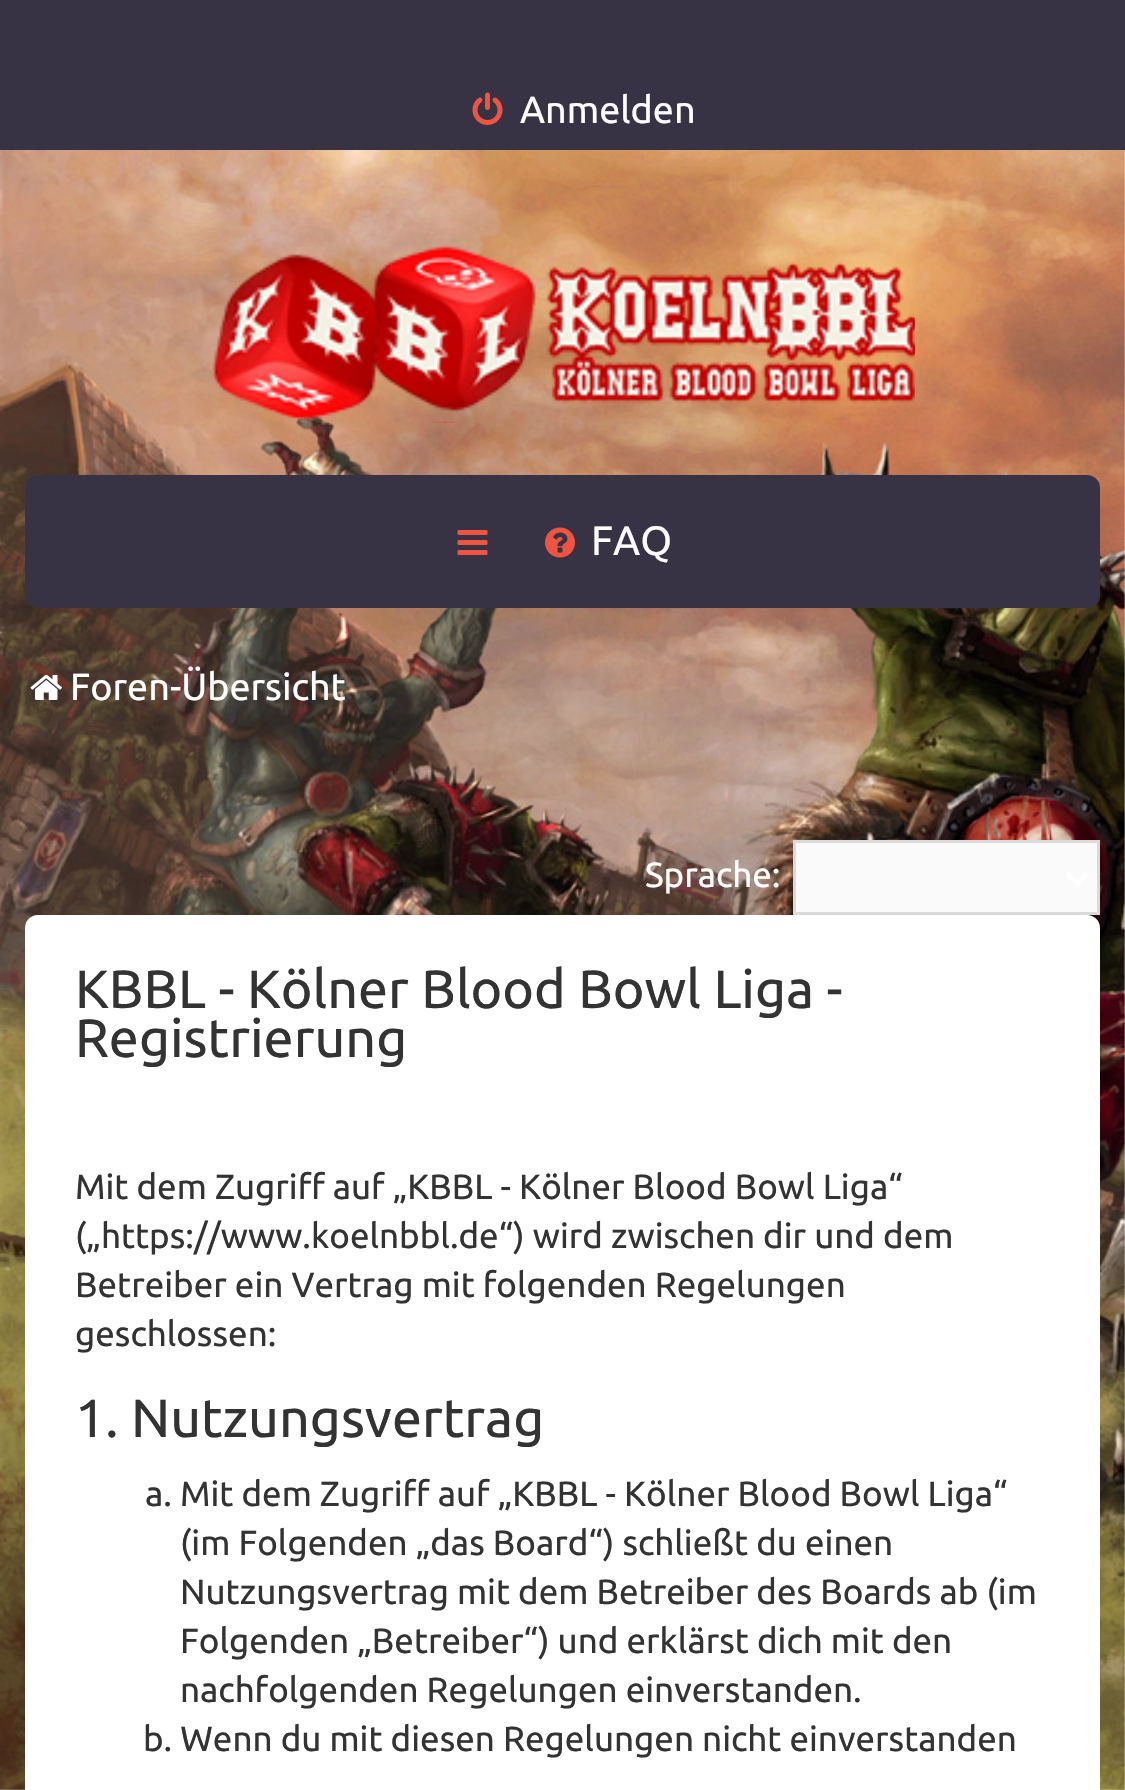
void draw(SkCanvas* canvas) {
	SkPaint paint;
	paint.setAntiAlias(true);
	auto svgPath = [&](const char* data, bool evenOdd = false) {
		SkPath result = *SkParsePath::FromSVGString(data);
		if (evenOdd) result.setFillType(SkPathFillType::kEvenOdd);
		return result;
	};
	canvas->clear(0xffeaedf1);
	canvas->drawImageRect(SkImages::DeferredFromEncodedData(SkData::MakeFromFileName("img1.png")), SkRect::MakeXYWH(0, 150, 1125, 1640), SkSamplingOptions());
	paint.setColor(0xff383245);
	canvas->drawRect(SkRect::MakeXYWH(0, 0, 1125, 150), paint);
	canvas->drawImageRect(SkImages::DeferredFromEncodedData(SkData::MakeFromFileName("img2.png")), SkRect::MakeXYWH(472, 92, 31, 33), SkSamplingOptions());
	SkFont f1(fontMgr->matchFamilyStyle("Ubuntu", SkFontStyle::Normal()), 37.75);
	f1.setSubpixel(true);
	paint.setColor(0xffffffff);
	canvas->drawString("Anmelden", 520, 123, f1, paint);
	canvas->drawImageRect(SkImages::DeferredFromEncodedData(SkData::MakeFromFileName("img3.png")), SkRect::MakeXYWH(212, 245, 703, 178), SkSamplingOptions());
	paint.setColor(0xff383245);
	canvas->drawRoundRect(SkRect::MakeXYWH(25, 475, 1075, 133), 13, 13, paint);
	canvas->drawImageRect(SkImages::DeferredFromEncodedData(SkData::MakeFromFileName("img4.png")), SkRect::MakeXYWH(457, 530, 31, 25), SkSamplingOptions());
	canvas->drawImageRect(SkImages::DeferredFromEncodedData(SkData::MakeFromFileName("img5.png")), SkRect::MakeXYWH(545, 527, 30, 31), SkSamplingOptions());
	SkFont f2(fontMgr->matchFamilyStyle("Ubuntu", SkFontStyle::Normal()), 41);
	f2.setSubpixel(true);
	paint.setColor(0xffffffff);
	canvas->drawString("FAQ", 591, 555, f2, paint);
	canvas->drawImageRect(SkImages::DeferredFromEncodedData(SkData::MakeFromFileName("img6.png")), SkRect::MakeXYWH(30, 674, 32, 26), SkSamplingOptions());
	canvas->drawString("Foren-Übersicht", 70, 700, f1, paint);
	SkFont f3(fontMgr->matchFamilyStyle("Ubuntu", SkFontStyle::Normal()), 35);
	f3.setSubpixel(true);
	canvas->drawString("Sprache:", 645, 887, f3, paint);
	paint.setColor(0xfffafafa);
	canvas->drawRect(SkRect::MakeXYWH(794.5, 841.5, 304, 72), paint);
	paint.setStroke(true);
	paint.setStrokeWidth(3);
	paint.setColor(0xffdadada);
	canvas->drawRect(SkRect::MakeXYWH(794.5, 841.5, 304, 72), paint);
	paint.setStrokeWidth(5);
	paint.setColor(0xffffffff);
	canvas->drawPath(svgPath("M1067.5 873.5L1077.5 883.5L1087.5 873.5"), paint);
	paint.setStroke(false);
	canvas->drawRoundRect(SkRect::MakeXYWH(25, 915, 1075, 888), 13, 13, paint);
	SkFont f4(fontMgr->matchFamilyStyle("Ubuntu", SkFontStyle::Normal()), 53.8);
	f4.setSubpixel(true);
	paint.setColor(0xff333333);
	canvas->drawString("KBBL - Kölner Blood Bowl Liga -", 75, 1008, f4, paint);
	canvas->drawString("Registrierung", 75, 1057, f4, paint);
	canvas->drawString("Mit dem Zugriff auf „KBBL - Kölner Blood Bowl Liga“", 75, 1199, f3, paint);
	canvas->drawString("(„https://www.koelnbbl.de“) wird zwischen dir und dem", 75, 1248, f3, paint);
	canvas->drawString("Betreiber ein Vertrag mit folgenden Regelungen", 75, 1297, f3, paint);
	canvas->drawString("geschlossen:", 75, 1346, f3, paint);
	canvas->drawString("1. Nutzungsvertrag", 75, 1437, f4, paint);
	canvas->drawString("a. Mit dem Zugriff auf „KBBL - Kölner Blood Bowl Liga“", 145, 1506, f3, paint);
	canvas->drawString("(im Folgenden „das Board“) schließt du einen", 180, 1555, f3, paint);
	canvas->drawString("Nutzungsvertrag mit dem Betreiber des Boards ab (im", 180, 1604, f3, paint);
	canvas->drawString("Folgenden „Betreiber“) und erklärst dich mit den", 180, 1653, f3, paint);
	canvas->drawString("nachfolgenden Regelungen einverstanden.", 180, 1702, f3, paint);
	canvas->drawString("b. Wenn du mit diesen Regelungen nicht einverstanden", 143, 1751, f3, paint);
}
